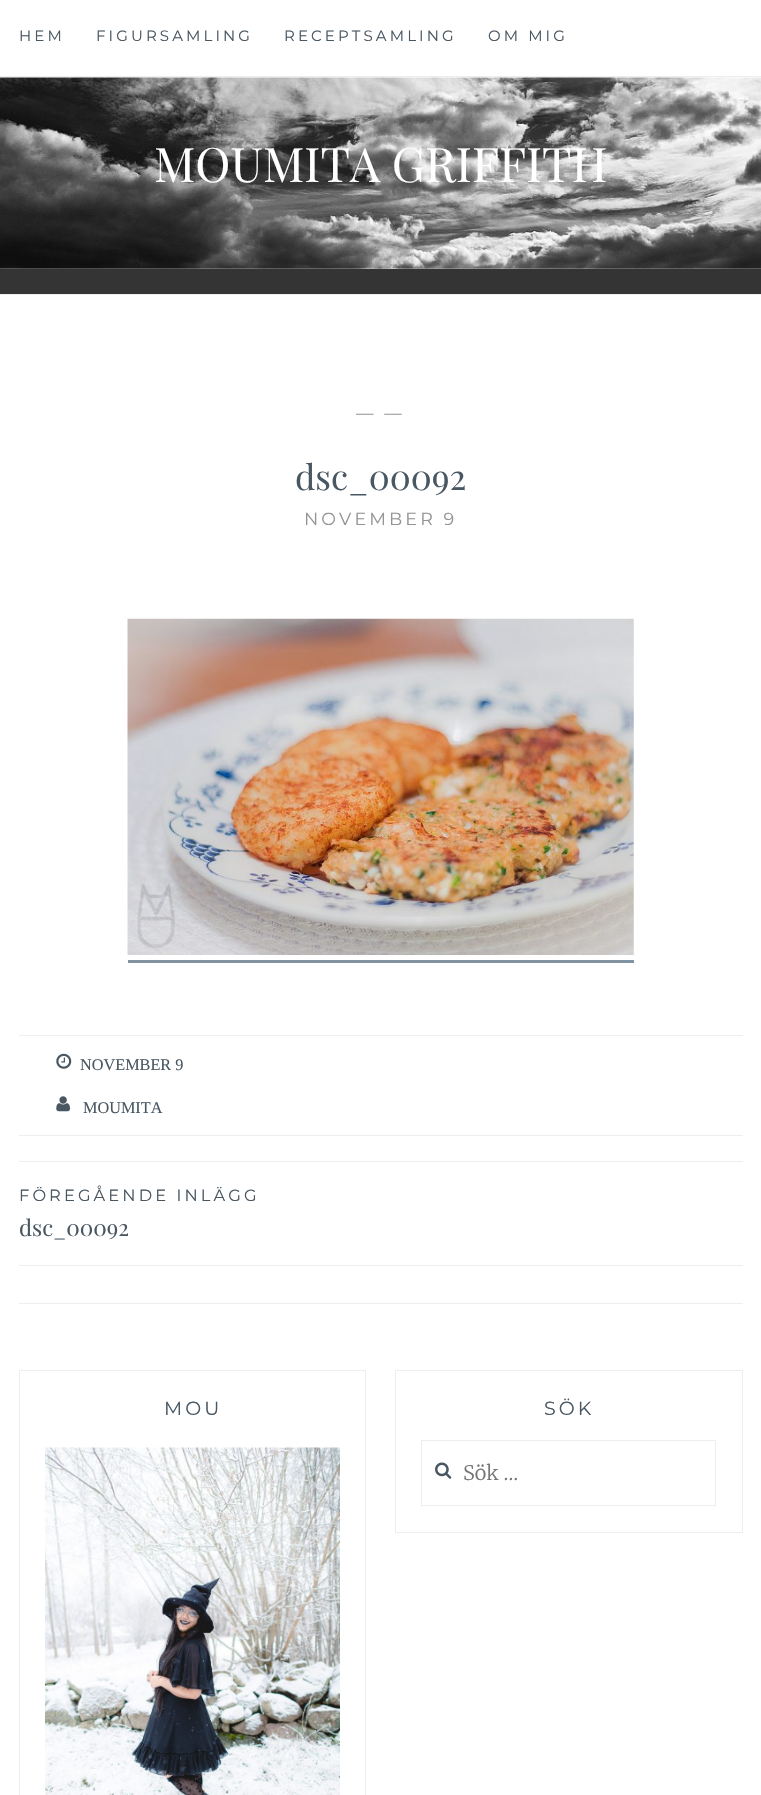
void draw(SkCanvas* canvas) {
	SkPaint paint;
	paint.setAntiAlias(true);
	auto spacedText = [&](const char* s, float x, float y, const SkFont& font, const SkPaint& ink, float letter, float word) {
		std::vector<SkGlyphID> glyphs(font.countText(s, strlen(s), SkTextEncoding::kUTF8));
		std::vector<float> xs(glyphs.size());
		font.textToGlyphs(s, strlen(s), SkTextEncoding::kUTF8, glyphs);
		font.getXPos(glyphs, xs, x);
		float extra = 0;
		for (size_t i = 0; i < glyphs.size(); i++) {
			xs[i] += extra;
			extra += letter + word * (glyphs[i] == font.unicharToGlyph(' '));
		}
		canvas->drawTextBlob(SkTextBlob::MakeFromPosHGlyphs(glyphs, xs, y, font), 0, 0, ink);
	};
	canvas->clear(0xffffffff);
	paint.setColor(0xffeeeeee);
	canvas->drawRect(SkRect::MakeXYWH(0, 76, 761, 1), paint);
	SkFont f1(fontMgr->matchFamilyStyle("Montserrat", SkFontStyle::Normal()), 15);
	f1.setSubpixel(true);
	paint.setColor(0xff495762);
	spacedText("HEM", 19, 41, f1, paint, 3.1, 0);
	spacedText("FIGURSAMLING", 96, 41, f1, paint, 3.1, 0);
	spacedText("RECEPTSAMLING", 284, 41, f1, paint, 3.1, 0);
	spacedText("OM MIG", 488, 41, f1, paint, 3.1, 0);
	paint.setColor(0xff343434);
	canvas->drawRect(SkRect::MakeXYWH(0, 269, 761, 25), paint);
	canvas->drawImageRect(SkImages::DeferredFromEncodedData(SkData::MakeFromFileName("img1.png")), SkRect::MakeXYWH(0, 77, 761, 192), SkSamplingOptions());
	SkFont f2(fontMgr->matchFamilyStyle("Playfair Display", SkFontStyle::Normal()), 47.5);
	f2.setSubpixel(true);
	paint.setColor(0xffffffff);
	canvas->drawString("MOUMITA GRIFFITH", 154, 182, f2, paint);
	paint.setColor(0xffeeeeee);
	canvas->drawRect(SkRect::MakeXYWH(0, 294, 761, 1), paint);
	SkFont f3(fontMgr->matchFamilyStyle("Montserrat", SkFontStyle::Normal()), 17.5);
	f3.setSubpixel(true);
	paint.setColor(0xff949494);
	spacedText("— —", 356, 419, f3, paint, 3.1, 0);
	SkFont f4(fontMgr->matchFamilyStyle("Playfair Display", SkFontStyle::Normal()), 35);
	f4.setSubpixel(true);
	paint.setColor(0xff495762);
	canvas->drawString("dsc_00092", 295, 490, f4, paint);
	paint.setColor(0xff949494);
	spacedText("NOVEMBER 9", 304, 525, f3, paint, 3.1, 0);
	canvas->drawImageRect(SkImages::DeferredFromEncodedData(SkData::MakeFromFileName("img2.png")), SkRect::MakeXYWH(127, 618, 507, 337), SkSamplingOptions());
	paint.setColor(0xff8193a1);
	canvas->drawRect(SkRect::MakeXYWH(128, 960, 506, 3), paint);
	paint.setColor(0xffeeeeee);
	canvas->drawRect(SkRect::MakeXYWH(19, 1035, 724, 1), paint);
	canvas->drawRect(SkRect::MakeXYWH(19, 1135, 724, 1), paint);
	canvas->drawImageRect(SkImages::DeferredFromEncodedData(SkData::MakeFromFileName("img3.png")), SkRect::MakeXYWH(56, 1053, 16, 16), SkSamplingOptions());
	SkFont f5(fontMgr->matchFamilyStyle("Liberation Serif", SkFontStyle::Normal()), 16.25);
	f5.setSubpixel(true);
	paint.setColor(0xff495762);
	canvas->drawString("NOVEMBER 9", 80, 1070, f5, paint);
	canvas->drawImageRect(SkImages::DeferredFromEncodedData(SkData::MakeFromFileName("img4.png")), SkRect::MakeXYWH(56, 1096, 14, 16), SkSamplingOptions());
	canvas->drawString("MOUMITA", 83, 1113, f5, paint);
	paint.setColor(0xffeeeeee);
	canvas->drawRect(SkRect::MakeXYWH(19, 1161, 724, 1), paint);
	canvas->drawRect(SkRect::MakeXYWH(19, 1303, 724, 1), paint);
	canvas->drawRect(SkRect::MakeXYWH(19, 1265, 724, 1), paint);
	SkFont f6(fontMgr->matchFamilyStyle("Montserrat", SkFontStyle::Normal()), 16.25);
	f6.setSubpixel(true);
	paint.setColor(0xff495762);
	spacedText("FÖREGÅENDE INLÄGG", 19, 1201, f6, paint, 3.1, 0);
	SkFont f7(fontMgr->matchFamilyStyle("Playfair Display", SkFontStyle::Normal()), 22.5);
	f7.setSubpixel(true);
	canvas->drawString("dsc_00092", 19, 1236, f7, paint);
	paint.setStroke(true);
	paint.setStrokeWidth(1);
	paint.setColor(0xffeeeeee);
	canvas->drawRect(SkRect::MakeXYWH(19.5, 1370.5, 346, 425), paint);
	SkFont f8(fontMgr->matchFamilyStyle("Montserrat", SkFontStyle::Normal()), 19);
	f8.setSubpixel(true);
	paint.setStroke(false);
	paint.setColor(0xff495762);
	spacedText("MOU", 164, 1415, f8, paint, 3.1, 0);
	canvas->drawImageRect(SkImages::DeferredFromEncodedData(SkData::MakeFromFileName("img5.png")), SkRect::MakeXYWH(45, 1447, 295, 348), SkSamplingOptions());
	paint.setStroke(true);
	paint.setColor(0xffeeeeee);
	canvas->drawRect(SkRect::MakeXYWH(395.5, 1370.5, 347, 162), paint);
	paint.setStroke(false);
	paint.setColor(0xff495762);
	spacedText("SÖK", 544, 1415, f8, paint, 3.1, 0);
	paint.setStroke(true);
	paint.setColor(0xffeeeeee);
	canvas->drawRect(SkRect::MakeXYWH(421.5, 1440.5, 294, 65), paint);
	canvas->drawImageRect(SkImages::DeferredFromEncodedData(SkData::MakeFromFileName("img6.png")), SkRect::MakeXYWH(435, 1462, 17, 17), SkSamplingOptions());
	SkFont f9(fontMgr->matchFamilyStyle("Merriweather", SkFontStyle(300, SkFontStyle::kNormal_Width, SkFontStyle::kUpright_Slant)), 20);
	f9.setSubpixel(true);
	paint.setStroke(false);
	paint.setColor(0xff757575);
	canvas->drawString("Sök …", 463, 1480, f9, paint);
}
